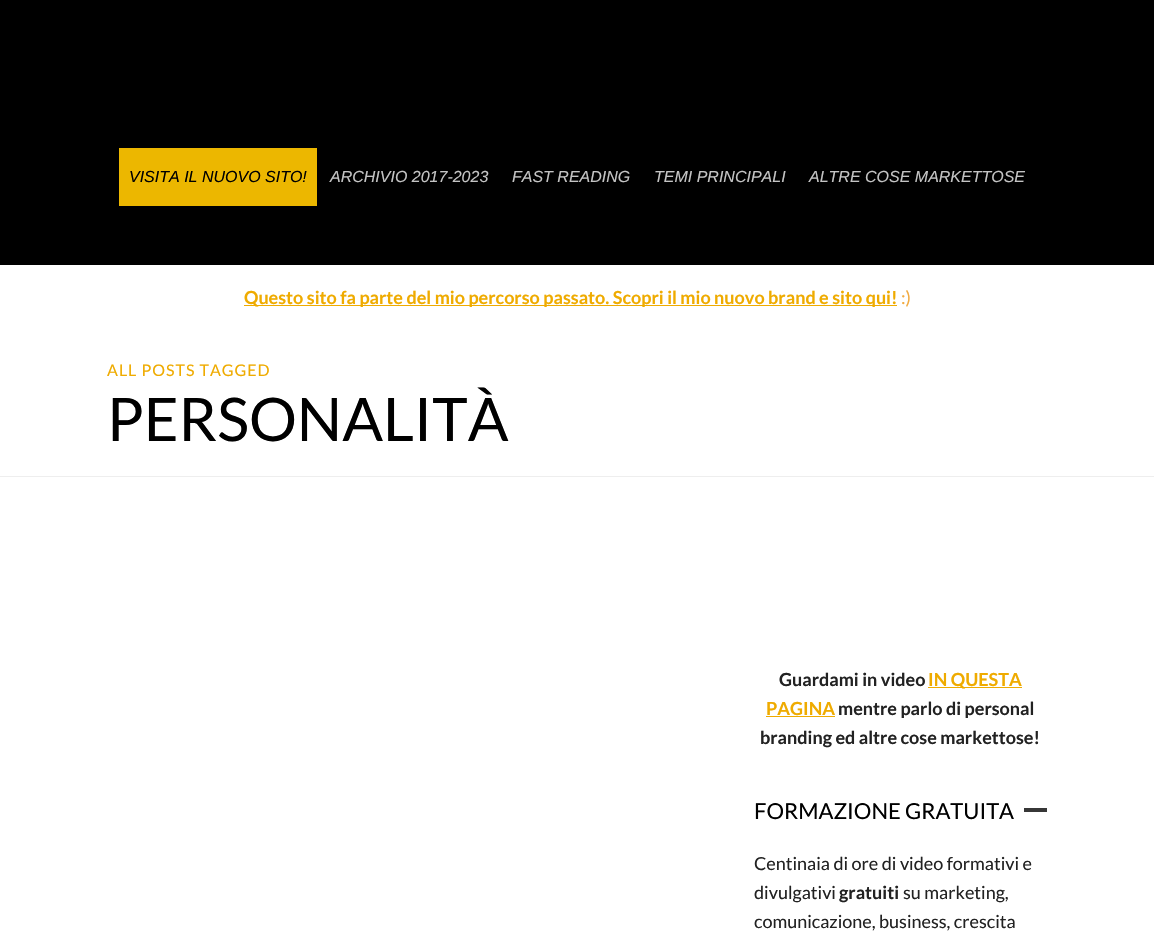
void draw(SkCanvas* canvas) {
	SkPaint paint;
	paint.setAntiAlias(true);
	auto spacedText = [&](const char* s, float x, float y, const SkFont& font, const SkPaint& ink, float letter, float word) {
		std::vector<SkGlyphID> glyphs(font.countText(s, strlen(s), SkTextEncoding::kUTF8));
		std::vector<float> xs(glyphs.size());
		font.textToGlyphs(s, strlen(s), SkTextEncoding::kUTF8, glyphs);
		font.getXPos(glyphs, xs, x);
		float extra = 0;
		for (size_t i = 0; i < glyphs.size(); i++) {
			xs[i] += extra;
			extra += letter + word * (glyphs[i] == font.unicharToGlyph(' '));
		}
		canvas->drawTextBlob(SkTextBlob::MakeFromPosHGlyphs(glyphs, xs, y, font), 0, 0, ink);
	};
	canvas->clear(0xffffffff);
	paint.setColor(0xff000000);
	canvas->drawRect(SkRect::MakeXYWH(0, 0, 1154, 265), paint);
	paint.setColor(0xffecb700);
	canvas->drawRect(SkRect::MakeXYWH(119, 148, 198, 58), paint);
	SkFont f1(fontMgr->matchFamilyStyle("Liberation Sans", SkFontStyle::Italic()), 16);
	f1.setSubpixel(true);
	paint.setColor(0xff000000);
	canvas->drawString("VISITA IL NUOVO SITO!", 129, 182, f1, paint);
	paint.setColor(0xffc4c4c4);
	canvas->drawString("ARCHIVIO 2017-2023", 330, 182, f1, paint);
	canvas->drawString("FAST READING", 512, 182, f1, paint);
	canvas->drawString("TEMI PRINCIPALI", 654, 182, f1, paint);
	canvas->drawString("ALTRE COSE MARKETTOSE", 809, 182, f1, paint);
	paint.setColor(0xffefab00);
	canvas->drawRect(SkRect::MakeXYWH(244, 305, 653, 1), paint);
	SkFont f2(fontMgr->matchFamilyStyle("Lato", SkFontStyle::Bold()), 18);
	f2.setSubpixel(true);
	canvas->drawString("Questo sito fa parte del mio percorso passato. Scopri il mio nuovo brand e sito qui!", 244, 304, f2, paint);
	SkFont f3(fontMgr->matchFamilyStyle("Lato", SkFontStyle::Normal()), 18);
	f3.setSubpixel(true);
	paint.setColor(0xfff2ab41);
	canvas->drawString(":)", 901, 304, f3, paint);
	paint.setColor(0xffeeeeee);
	canvas->drawRect(SkRect::MakeXYWH(0, 476, 1154, 1), paint);
	SkFont f4(fontMgr->matchFamilyStyle("Lato", SkFontStyle::Normal()), 16);
	f4.setSubpixel(true);
	paint.setColor(0xffefab00);
	spacedText("ALL POSTS TAGGED", 107, 376, f4, paint, 1, 0);
	SkFont f5(fontMgr->matchFamilyStyle("Lato", SkFontStyle::Normal()), 60);
	f5.setSubpixel(true);
	paint.setColor(0xff000000);
	canvas->drawString("PERSONALITÀ", 107, 441, f5, paint);
	paint.setColor(0xff222222);
	canvas->drawString("Guardami in video", 779, 686, f2, paint);
	paint.setColor(0xffefab00);
	canvas->drawRect(SkRect::MakeXYWH(928, 687, 94, 1), paint);
	canvas->drawString("IN QUESTA", 928, 686, f2, paint);
	canvas->drawString("PAGINA", 766, 715, f2, paint);
	canvas->drawRect(SkRect::MakeXYWH(766, 716, 69, 1), paint);
	paint.setColor(0xff222222);
	canvas->drawString("mentre parlo di personal", 838, 715, f2, paint);
	canvas->drawString("branding ed altre cose markettose!", 760, 744, f2, paint);
	SkFont f6(fontMgr->matchFamilyStyle("Lato", SkFontStyle::Normal()), 22);
	f6.setSubpixel(true);
	paint.setColor(0xff000000);
	canvas->drawString("FORMAZIONE GRATUITA", 754, 819, f6, paint);
	paint.setColor(0xff373737);
	canvas->drawRect(SkRect::MakeXYWH(1024, 808, 23, 4), paint);
	paint.setColor(0xff222222);
	canvas->drawString("Centinaia di ore di video formativi e", 754, 870, f3, paint);
	canvas->drawString("divulgativi", 754, 899, f3, paint);
	canvas->drawString("gratuiti", 839, 899, f2, paint);
	canvas->drawString("su marketing,", 903, 899, f3, paint);
	canvas->drawString("comunicazione, business, crescita", 754, 928, f3, paint);
}
